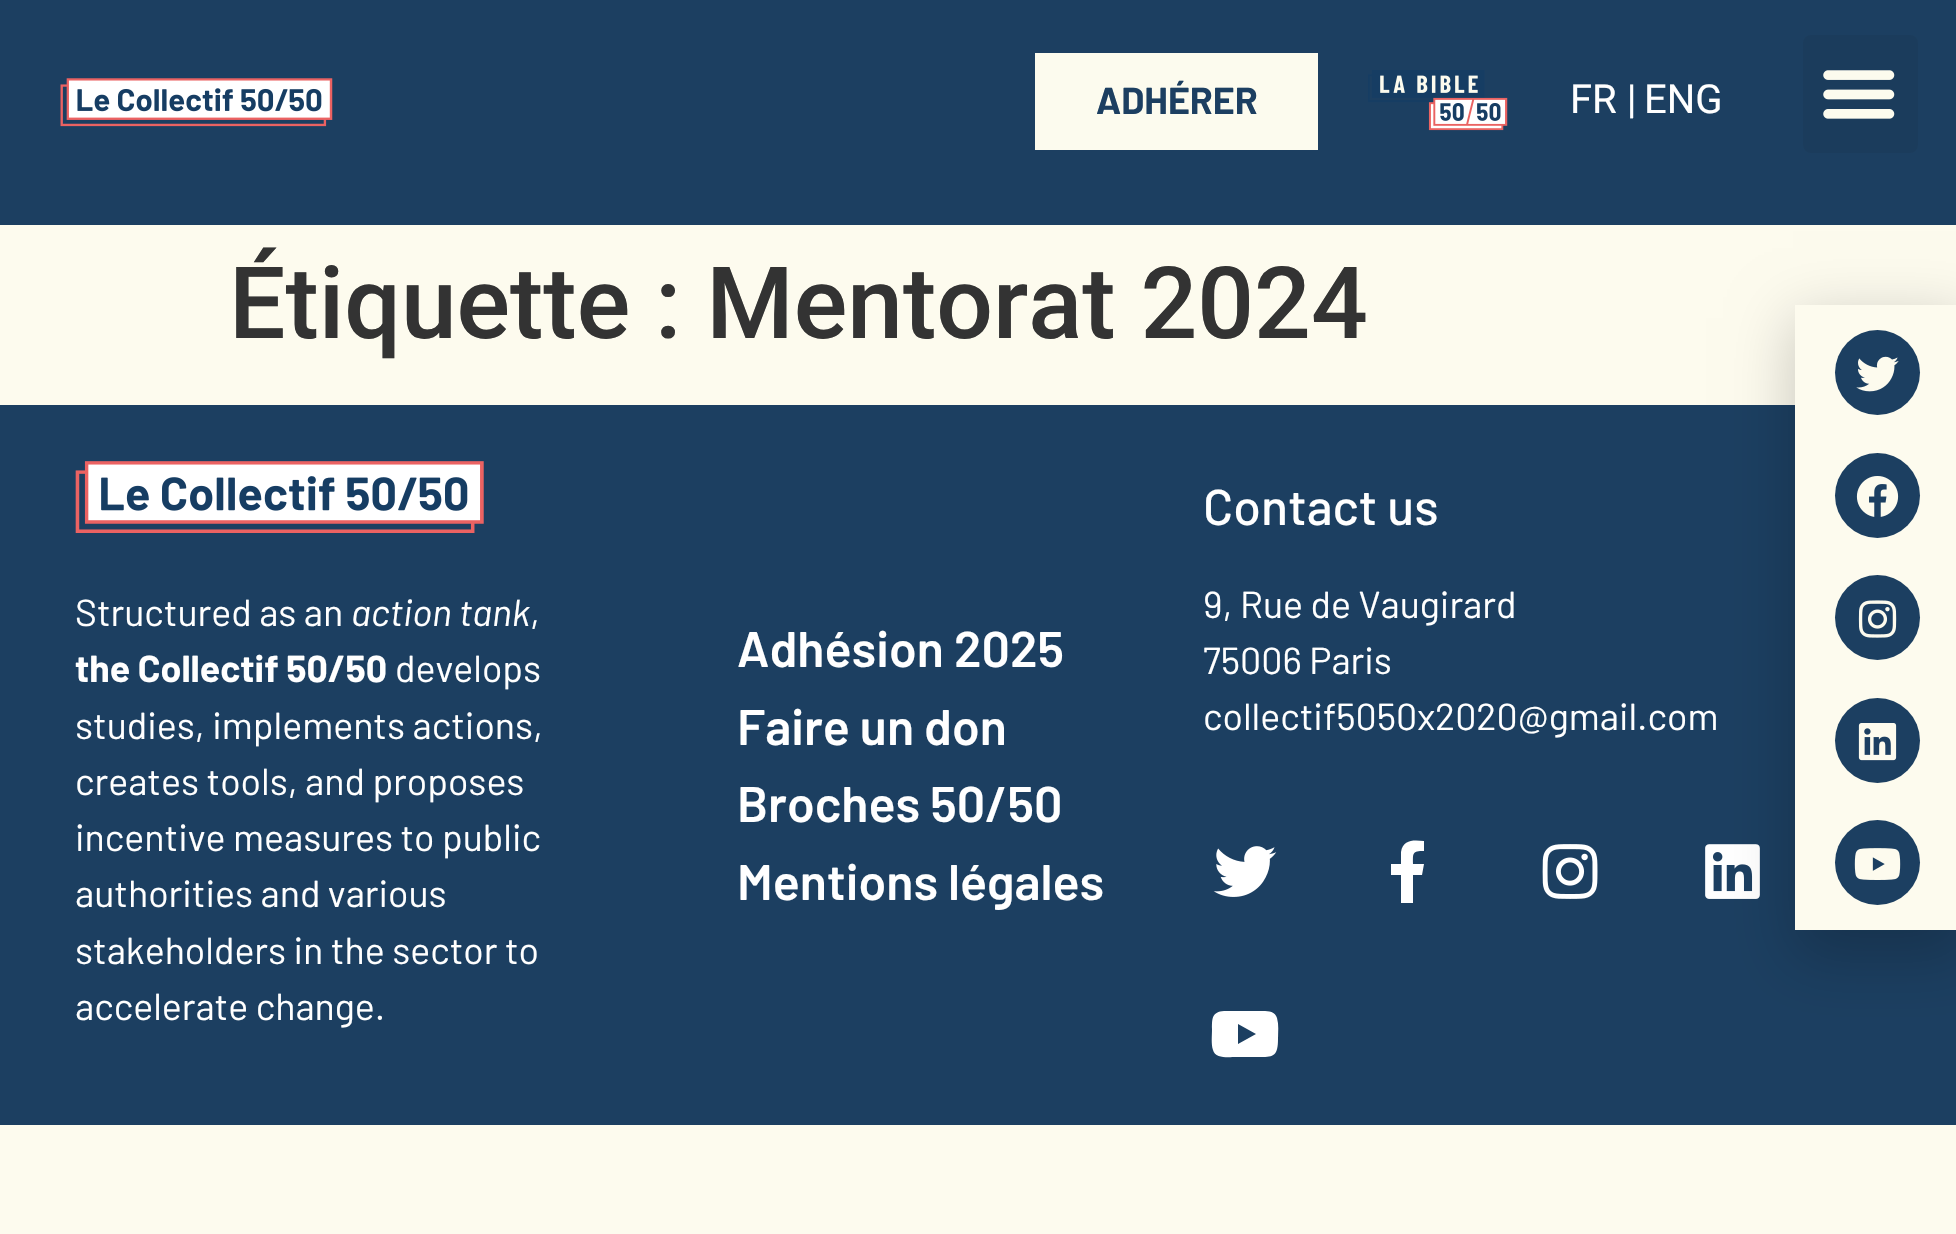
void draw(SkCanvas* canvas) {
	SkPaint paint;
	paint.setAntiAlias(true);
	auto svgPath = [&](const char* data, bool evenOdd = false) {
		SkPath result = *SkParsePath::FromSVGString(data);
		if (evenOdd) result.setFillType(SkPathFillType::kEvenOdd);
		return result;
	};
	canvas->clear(0xfffdfbee);
	paint.setColor(0xff1c3f61);
	canvas->drawRect(SkRect::MakeXYWH(0, 0, 1956, 225), paint);
	canvas->drawImageRect(SkImages::DeferredFromEncodedData(SkData::MakeFromFileName("img1.png")), SkRect::MakeXYWH(60, 78, 273, 49), SkSamplingOptions());
	paint.setColor(0xfffcfbee);
	canvas->drawRect(SkRect::MakeXYWH(1035, 53, 283, 97), paint);
	SkFont f1(fontMgr->matchFamilyStyle("Barlow", SkFontStyle::Bold()), 37.5);
	f1.setSubpixel(true);
	paint.setColor(0xff1c3f61);
	canvas->drawString("ADHÉRER", 1096, 114, f1, paint);
	canvas->drawImageRect(SkImages::DeferredFromEncodedData(SkData::MakeFromFileName("img2.png")), SkRect::MakeXYWH(1368, 70, 140, 61), SkSamplingOptions());
	SkFont f2(fontMgr->matchFamilyStyle("Roboto", SkFontStyle::Normal()), 40);
	f2.setSubpixel(true);
	paint.setColor(0xffffffff);
	canvas->drawString("FR |", 1570, 113, f2, paint);
	canvas->drawString("ENG", 1644, 113, f2, paint);
	paint.setColor(0xff1b3c5c);
	canvas->drawRoundRect(SkRect::MakeXYWH(1803, 35, 115, 118), 8, 8, paint);
	canvas->drawImageRect(SkImages::DeferredFromEncodedData(SkData::MakeFromFileName("img3.png")), SkRect::MakeXYWH(1823, 70, 72, 49), SkSamplingOptions());
	SkFont f3(fontMgr->matchFamilyStyle("Roboto", SkFontStyle(500, SkFontStyle::kNormal_Width, SkFontStyle::kUpright_Slant)), 100);
	f3.setSubpixel(true);
	paint.setColor(0xff333333);
	canvas->drawString("Étiquette : Mentorat 2024", 229, 338, f3, paint);
	paint.setColor(0xff1c3f61);
	canvas->drawRect(SkRect::MakeXYWH(0, 405, 1956, 720), paint);
	canvas->drawImageRect(SkImages::DeferredFromEncodedData(SkData::MakeFromFileName("img12.png")), SkRect::MakeXYWH(1705, 844, 55, 55), SkSamplingOptions());
	paint.setColor(0x33000000);
	paint.setMaskFilter(SkMaskFilter::MakeBlur(kNormal_SkBlurStyle, 29));
	canvas->drawRect(SkRect::MakeXYWH(1793, 318, 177, 640), paint);
	paint.setMaskFilter(nullptr);
	paint.setColor(0xfffdfbee);
	canvas->drawRect(SkRect::MakeXYWH(1795, 305, 161, 625), paint);
	paint.setColor(0xff1c3f61);
	canvas->drawCircle(1877.5, 372.5, 42.5, paint);
	canvas->drawImageRect(SkImages::DeferredFromEncodedData(SkData::MakeFromFileName("img4.png")), SkRect::MakeXYWH(1856, 356, 43, 36), SkSamplingOptions());
	canvas->drawCircle(1877.5, 495.5, 42.5, paint);
	canvas->drawImageRect(SkImages::DeferredFromEncodedData(SkData::MakeFromFileName("img5.png")), SkRect::MakeXYWH(1856, 476, 43, 41), SkSamplingOptions());
	canvas->drawCircle(1877.5, 617.5, 42.5, paint);
	canvas->drawImageRect(SkImages::DeferredFromEncodedData(SkData::MakeFromFileName("img6.png")), SkRect::MakeXYWH(1858, 600, 39, 38), SkSamplingOptions());
	canvas->drawCircle(1877.5, 740.5, 42.5, paint);
	canvas->drawImageRect(SkImages::DeferredFromEncodedData(SkData::MakeFromFileName("img7.png")), SkRect::MakeXYWH(1858, 723, 39, 38), SkSamplingOptions());
	canvas->drawCircle(1877.5, 862.5, 42.5, paint);
	canvas->drawImageRect(SkImages::DeferredFromEncodedData(SkData::MakeFromFileName("img8.png")), SkRect::MakeXYWH(1854, 848, 47, 32), SkSamplingOptions());
	canvas->drawImageRect(SkImages::DeferredFromEncodedData(SkData::MakeFromFileName("img9.png")), SkRect::MakeXYWH(75, 461, 409, 72), SkSamplingOptions());
	SkFont f4(fontMgr->matchFamilyStyle("Barlow", SkFontStyle::Normal()), 37.5);
	f4.setSubpixel(true);
	paint.setColor(0xffffffff);
	canvas->drawString("Structured as an", 75, 626, f4, paint);
	SkFont f5(fontMgr->matchFamilyStyle("Barlow", SkFontStyle::Italic()), 37.5);
	f5.setSubpixel(true);
	canvas->drawString("action tank", 351, 626, f5, paint);
	canvas->drawString(",", 530, 626, f4, paint);
	canvas->drawString("the Collectif 50/50", 75, 682, f1, paint);
	canvas->drawString("develops", 395, 682, f4, paint);
	canvas->drawString("studies, implements actions,", 75, 739, f4, paint);
	canvas->drawString("creates tools, and proposes", 75, 795, f4, paint);
	canvas->drawString("incentive measures to public", 75, 851, f4, paint);
	canvas->drawString("authorities and various", 75, 907, f4, paint);
	canvas->drawString("stakeholders in the sector to", 75, 964, f4, paint);
	canvas->drawString("accelerate change.", 75, 1020, f4, paint);
	SkFont f6(fontMgr->matchFamilyStyle("Barlow", SkFontStyle(600, SkFontStyle::kNormal_Width, SkFontStyle::kUpright_Slant)), 50);
	f6.setSubpixel(true);
	canvas->drawString("Adhésion 2025", 737, 667, f6, paint);
	canvas->drawString("Faire un don", 737, 745, f6, paint);
	canvas->drawString("Broches 50/50", 737, 822, f6, paint);
	canvas->drawString("Mentions légales", 737, 900, f6, paint);
	SkFont f7(fontMgr->matchFamilyStyle("Barlow", SkFontStyle(500, SkFontStyle::kNormal_Width, SkFontStyle::kUpright_Slant)), 50);
	f7.setSubpixel(true);
	canvas->drawString("Contact us", 1203, 525, f7, paint);
	canvas->drawString("9, Rue de Vaugirard", 1203, 618, f4, paint);
	canvas->drawString("75006 Paris", 1203, 674, f4, paint);
	canvas->drawString("collectif5050x2020@gmail.com", 1203, 730, f4, paint);
	canvas->drawImageRect(SkImages::DeferredFromEncodedData(SkData::MakeFromFileName("img10.png")), SkRect::MakeXYWH(1213, 846, 64, 51), SkSamplingOptions());
	canvas->drawPath(svgPath("M1422 875H1413V903H1401V875H1391V864H1401V852C1403 839 1414 840 1424 841V851C1412 851 1413 853 1413 864H1424Z"), paint);
	canvas->drawImageRect(SkImages::DeferredFromEncodedData(SkData::MakeFromFileName("img11.png")), SkRect::MakeXYWH(1542, 844, 56, 55), SkSamplingOptions());
	canvas->drawPath(svgPath("M1277 1018C1279 1025 1278 1032 1278 1039C1278 1059 1272 1057 1252 1057H1236C1229 1057 1215 1059 1213 1050C1211 1044 1212 1036 1212 1029C1212 1018 1212 1012 1224 1011H1239H1259C1265 1011 1275 1010 1277 1018ZM1238 1044L1256 1034L1238 1024Z"), paint);
}
